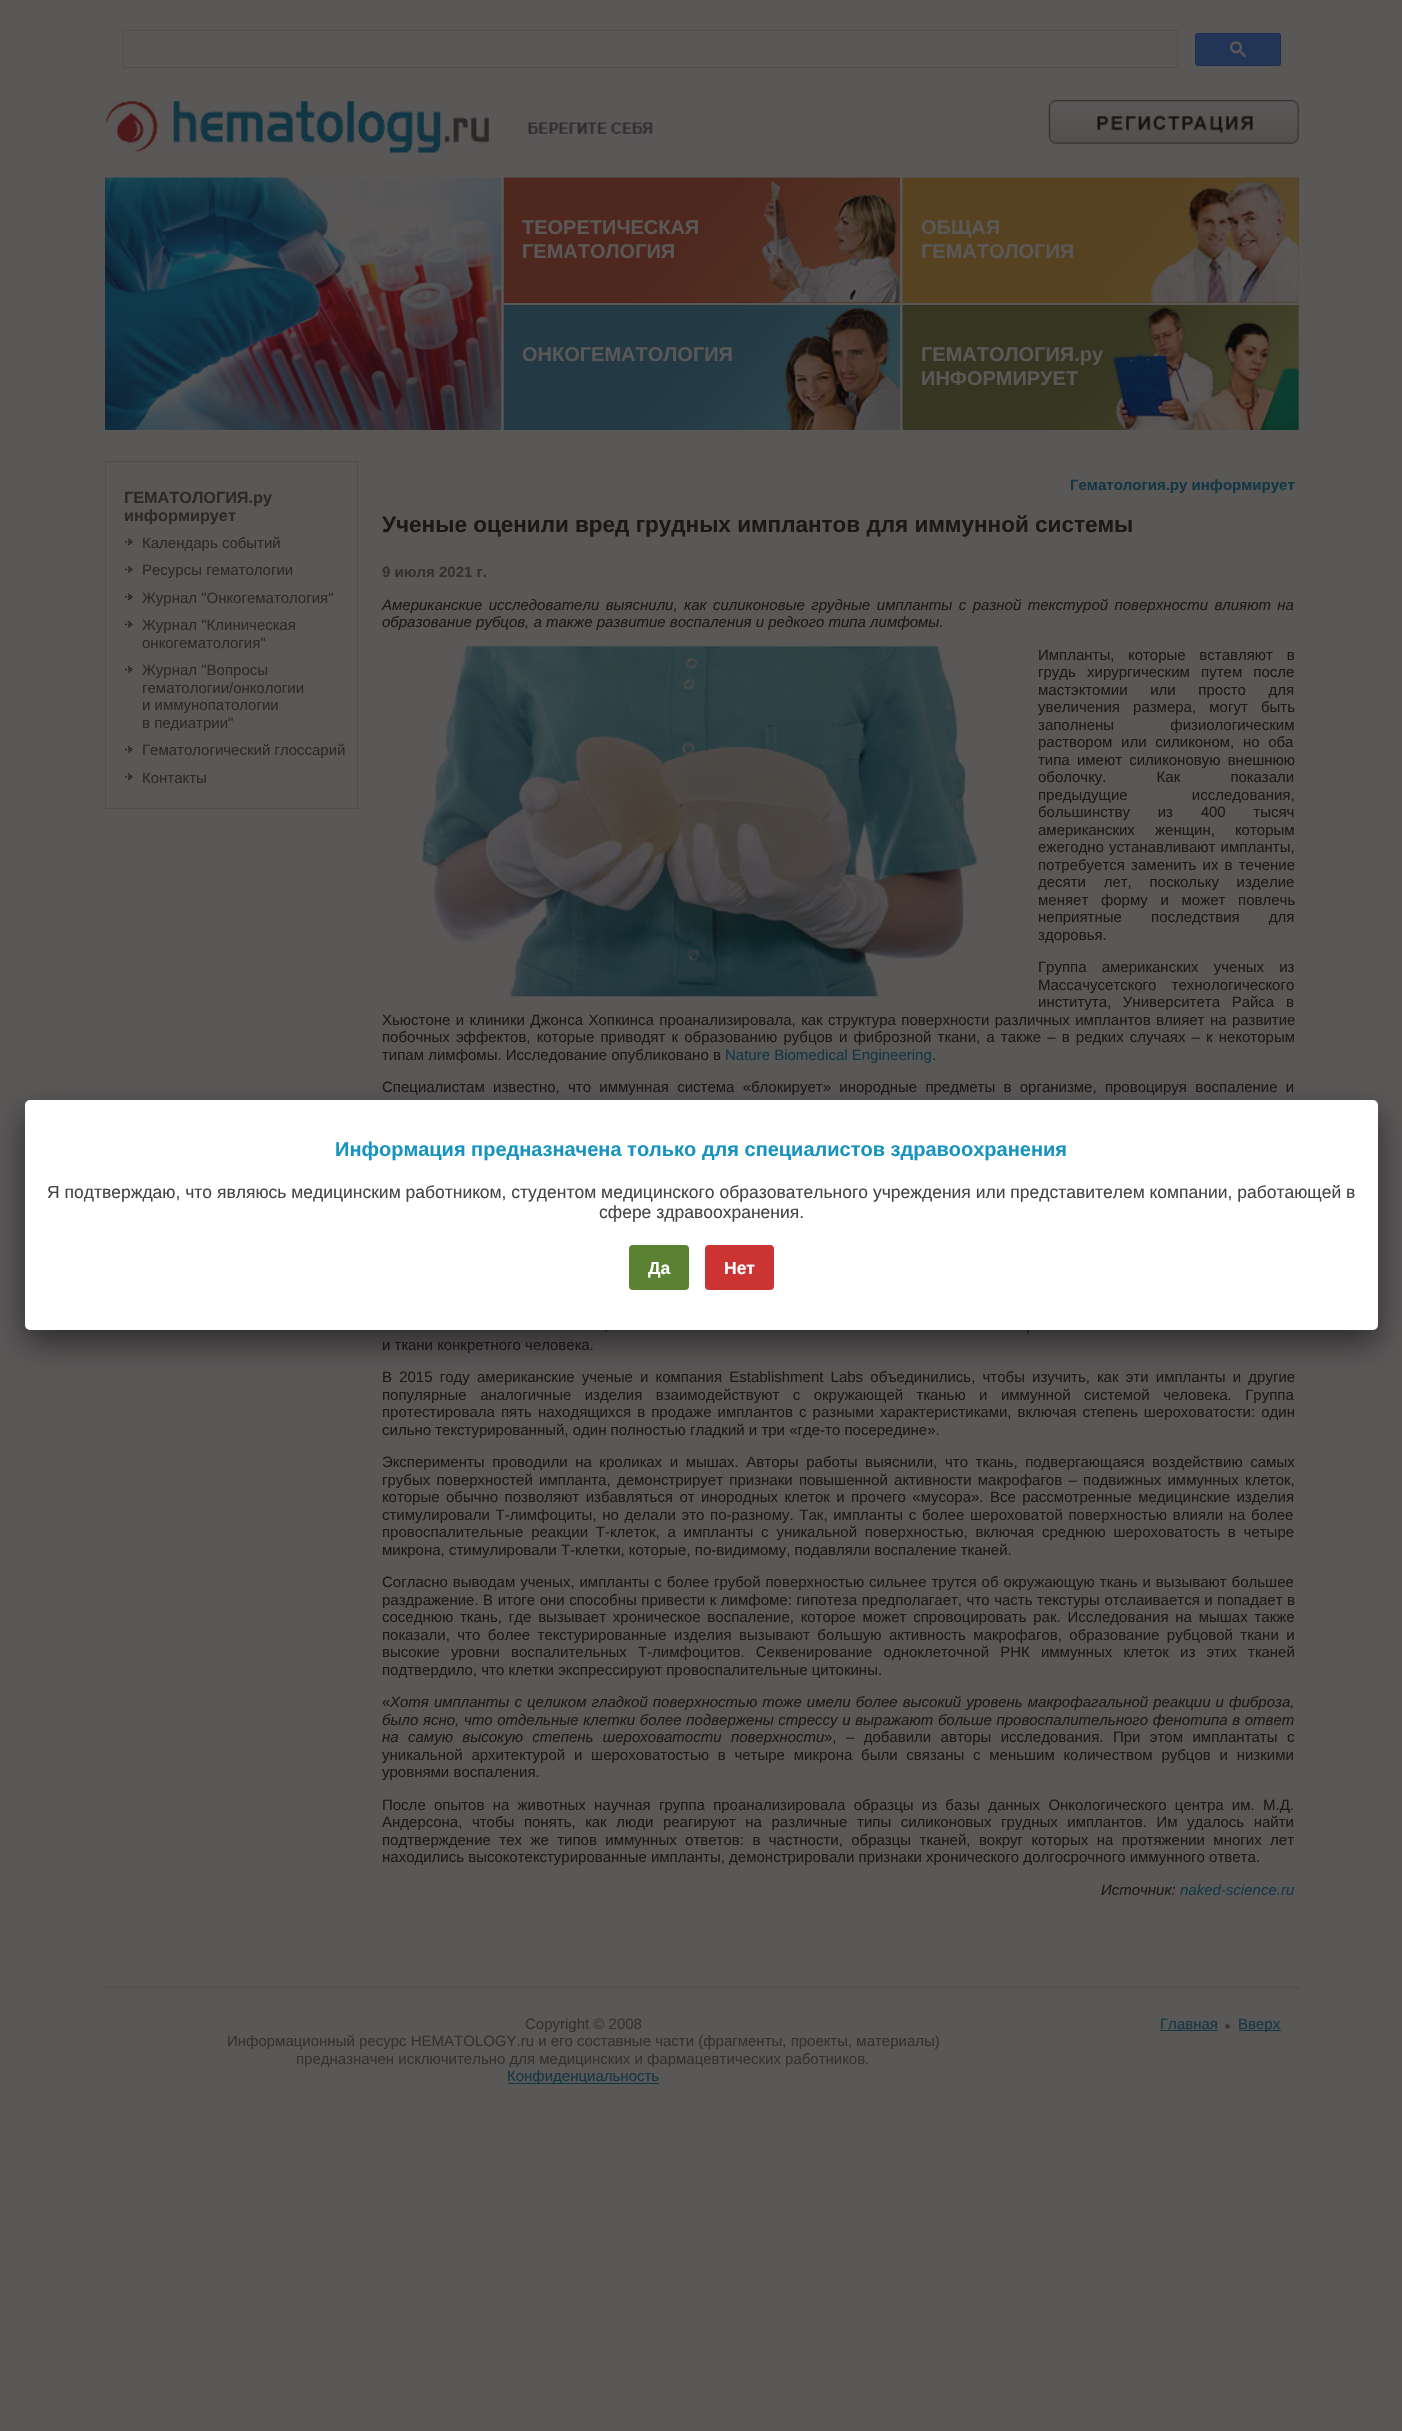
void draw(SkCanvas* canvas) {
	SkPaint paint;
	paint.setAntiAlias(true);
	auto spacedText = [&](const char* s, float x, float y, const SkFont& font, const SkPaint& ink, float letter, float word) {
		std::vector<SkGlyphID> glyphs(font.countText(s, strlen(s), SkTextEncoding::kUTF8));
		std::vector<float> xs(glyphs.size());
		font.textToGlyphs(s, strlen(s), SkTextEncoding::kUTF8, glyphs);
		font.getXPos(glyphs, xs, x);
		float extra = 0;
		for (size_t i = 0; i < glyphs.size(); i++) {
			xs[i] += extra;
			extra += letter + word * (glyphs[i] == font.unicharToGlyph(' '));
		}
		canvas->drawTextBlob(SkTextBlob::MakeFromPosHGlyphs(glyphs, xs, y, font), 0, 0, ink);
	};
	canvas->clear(0xff5a5757);
	paint.setStroke(true);
	paint.setStrokeWidth(1);
	paint.setColor(0xff504e4f);
	canvas->drawRect(SkRect::MakeXYWH(123.5, 30.5, 1054, 37), paint);
	paint.setStroke(false);
	paint.setColor(0xff233557);
	canvas->drawRoundRect(SkRect::MakeXYWH(1195.5, 33.5, 85, 32), 2, 2, paint);
	paint.setStroke(true);
	paint.setColor(0xff1a2e52);
	canvas->drawRoundRect(SkRect::MakeXYWH(1195.5, 33.5, 85, 32), 2, 2, paint);
	canvas->drawImageRect(SkImages::DeferredFromEncodedData(SkData::MakeFromFileName("img1.png")), SkRect::MakeXYWH(1230, 41, 16, 17), SkSamplingOptions());
	canvas->drawImageRect(SkImages::DeferredFromEncodedData(SkData::MakeFromFileName("img2.png")), SkRect::MakeXYWH(105, 100, 548, 53), SkSamplingOptions());
	canvas->drawImageRect(SkImages::DeferredFromEncodedData(SkData::MakeFromFileName("img3.png")), SkRect::MakeXYWH(1048, 100, 251, 44), SkSamplingOptions());
	canvas->drawImageRect(SkImages::DeferredFromEncodedData(SkData::MakeFromFileName("img4.png")), SkRect::MakeXYWH(105, 177, 397, 253), SkSamplingOptions());
	paint.setStroke(false);
	paint.setColor(0xff4e281e);
	canvas->drawRect(SkRect::MakeXYWH(504, 302, 396, 1), paint);
	canvas->drawImageRect(SkImages::DeferredFromEncodedData(SkData::MakeFromFileName("img5.png")), SkRect::MakeXYWH(503, 177, 397, 126), SkSamplingOptions());
	SkFont f1(fontMgr->matchFamilyStyle("Liberation Sans", SkFontStyle::Bold()), 20);
	f1.setSubpixel(true);
	paint.setColor(0xff5a5757);
	canvas->drawString("ТЕОРЕТИЧЕСКАЯ", 522, 234, f1, paint);
	canvas->drawString("ГЕМАТОЛОГИЯ", 522, 258, f1, paint);
	paint.setColor(0xff563f24);
	canvas->drawRect(SkRect::MakeXYWH(903, 178, 396, 125), paint);
	canvas->drawImageRect(SkImages::DeferredFromEncodedData(SkData::MakeFromFileName("img6.png")), SkRect::MakeXYWH(902, 177, 397, 126), SkSamplingOptions());
	paint.setColor(0xff5a5757);
	canvas->drawString("ОБЩАЯ", 921, 234, f1, paint);
	canvas->drawString("ГЕМАТОЛОГИЯ", 921, 258, f1, paint);
	canvas->drawImageRect(SkImages::DeferredFromEncodedData(SkData::MakeFromFileName("img7.png")), SkRect::MakeXYWH(503, 305, 397, 125), SkSamplingOptions());
	canvas->drawString("ОНКОГЕМАТОЛОГИЯ", 522, 361, f1, paint);
	canvas->drawImageRect(SkImages::DeferredFromEncodedData(SkData::MakeFromFileName("img8.png")), SkRect::MakeXYWH(902, 305, 397, 125), SkSamplingOptions());
	canvas->drawString("ГЕМАТОЛОГИЯ.ру", 921, 361, f1, paint);
	canvas->drawString("ИНФОРМИРУЕТ", 921, 385, f1, paint);
	paint.setStroke(true);
	paint.setColor(0xff4f4c4c);
	canvas->drawRect(SkRect::MakeXYWH(105.5, 461.5, 252, 347), paint);
	SkFont f2(fontMgr->matchFamilyStyle("Liberation Sans", SkFontStyle::Bold()), 16.25);
	f2.setSubpixel(true);
	paint.setStroke(false);
	paint.setColor(0xff2b2828);
	canvas->drawString("ГЕМАТОЛОГИЯ.ру", 124, 503, f2, paint);
	canvas->drawString("информирует", 124, 521, f2, paint);
	canvas->drawImageRect(SkImages::DeferredFromEncodedData(SkData::MakeFromFileName("img9.png")), SkRect::MakeXYWH(125, 538, 8, 7), SkSamplingOptions());
	SkFont f3(fontMgr->matchFamilyStyle("Liberation Sans", SkFontStyle::Normal()), 15);
	f3.setSubpixel(true);
	canvas->drawString("Календарь событий", 142, 548, f3, paint);
	canvas->drawImageRect(SkImages::DeferredFromEncodedData(SkData::MakeFromFileName("img10.png")), SkRect::MakeXYWH(125, 566, 8, 7), SkSamplingOptions());
	canvas->drawString("Ресурсы гематологии", 142, 575, f3, paint);
	canvas->drawImageRect(SkImages::DeferredFromEncodedData(SkData::MakeFromFileName("img9.png")), SkRect::MakeXYWH(125, 593, 8, 7), SkSamplingOptions());
	canvas->drawString("Журнал \"Онкогематология\"", 142, 603, f3, paint);
	canvas->drawImageRect(SkImages::DeferredFromEncodedData(SkData::MakeFromFileName("img10.png")), SkRect::MakeXYWH(125, 621, 8, 7), SkSamplingOptions());
	canvas->drawString("Журнал \"Клиническая", 142, 630, f3, paint);
	canvas->drawString("онкогематология\"", 142, 648, f3, paint);
	canvas->drawImageRect(SkImages::DeferredFromEncodedData(SkData::MakeFromFileName("img10.png")), SkRect::MakeXYWH(125, 666, 8, 7), SkSamplingOptions());
	canvas->drawString("Журнал \"Вопросы", 142, 675, f3, paint);
	canvas->drawString("гематологии/онкологии", 142, 693, f3, paint);
	canvas->drawString("и иммунопатологии", 142, 710, f3, paint);
	canvas->drawString("в педиатрии\"", 142, 728, f3, paint);
	canvas->drawImageRect(SkImages::DeferredFromEncodedData(SkData::MakeFromFileName("img10.png")), SkRect::MakeXYWH(125, 746, 8, 7), SkSamplingOptions());
	canvas->drawString("Гематологический глоссарий", 142, 755, f3, paint);
	canvas->drawImageRect(SkImages::DeferredFromEncodedData(SkData::MakeFromFileName("img9.png")), SkRect::MakeXYWH(125, 773, 8, 7), SkSamplingOptions());
	canvas->drawString("Контакты", 142, 783, f3, paint);
	SkFont f4(fontMgr->matchFamilyStyle("Liberation Sans", SkFontStyle::Bold()), 15);
	f4.setSubpixel(true);
	paint.setColor(0xff123643);
	canvas->drawString("Гематология.ру информирует", 1070, 490, f4, paint);
	SkFont f5(fontMgr->matchFamilyStyle("Liberation Sans", SkFontStyle::Bold()), 22.5);
	f5.setSubpixel(true);
	paint.setColor(0xff1b1818);
	canvas->drawString("Ученые оценили вред грудных имплантов для иммунной системы", 382, 532, f5, paint);
	paint.setColor(0xff333030);
	canvas->drawString("9 июля 2021 г.", 382, 577, f4, paint);
	SkFont f6(fontMgr->matchFamilyStyle("Liberation Sans", SkFontStyle::Italic()), 15);
	f6.setSubpixel(true);
	paint.setColor(0xff1b1818);
	spacedText("Американские исследователи выяснили, как силиконовые грудные импланты с разной текстурой поверхности влияют на", 382, 610, f6, paint, 0, 2.25);
	canvas->drawString("образование рубцов, а также развитие воспаления и редкого типа лимфомы.", 382, 627, f6, paint);
	canvas->drawImageRect(SkImages::DeferredFromEncodedData(SkData::MakeFromFileName("img11.png")), SkRect::MakeXYWH(416, 646, 564, 351), SkSamplingOptions());
	spacedText("Импланты, которые вставляют в", 1038, 660, f3, paint, 0, 9.5);
	spacedText("грудь хирургическим путем после", 1038, 677, f3, paint, 0, 7);
	spacedText("мастэктомии или просто для", 1038, 695, f3, paint, 0, 18.5);
	spacedText("увеличения размера, могут быть", 1038, 712, f3, paint, 0, 9);
	spacedText("заполнены физиологическим", 1038, 730, f3, paint, 0, 52);
	spacedText("раствором или силиконом, но оба", 1038, 747, f3, paint, 0, 4.5);
	spacedText("типа имеют силиконовую внешнюю", 1038, 765, f3, paint, 0, 3);
	spacedText("оболочку. Как показали", 1038, 782, f3, paint, 0, 46);
	spacedText("предыдущие исследования,", 1038, 800, f3, paint, 0, 60);
	spacedText("большинству из 400 тысяч", 1038, 817, f3, paint, 0, 23.5);
	spacedText("американских женщин, которым", 1038, 835, f3, paint, 0, 16);
	spacedText("ежегодно устанавливают импланты,", 1038, 852, f3, paint, 0, 1);
	spacedText("потребуется заменить их в течение", 1038, 870, f3, paint, 0, 2);
	spacedText("десяти лет, поскольку изделие", 1038, 887, f3, paint, 0, 13.5);
	spacedText("меняет форму и может повлечь", 1038, 905, f3, paint, 0, 8.5);
	spacedText("неприятные последствия для", 1038, 922, f3, paint, 0, 25);
	canvas->drawString("здоровья.", 1038, 940, f3, paint);
	spacedText("Группа американских ученых из", 1038, 972, f3, paint, 0, 11);
	spacedText("Массачусетского технологического", 1038, 990, f3, paint, 0, 11);
	spacedText("института, Университета Райса в", 1038, 1007, f3, paint, 0, 7.5);
	spacedText("Хьюстоне и клиники Джонса Хопкинса проанализировала, как структура поверхности различных имплантов влияет на развитие", 382, 1025, f3, paint, 0, 1.25);
	spacedText("побочных эффектов, которые приводят к образованию рубцов и фиброзной ткани, а также – в редких случаях – к некоторым", 382, 1042, f3, paint, 0, 2);
	canvas->drawString("типам лимфомы. Исследование опубликовано в", 382, 1060, f3, paint);
	paint.setColor(0xff123643);
	canvas->drawString("Nature Biomedical Engineering", 725, 1060, f3, paint);
	paint.setColor(0xff1b1818);
	canvas->drawString(".", 932, 1060, f3, paint);
	spacedText("Специалистам известно, что иммунная система «блокирует» инородные предметы в организме, провоцируя воспаление и", 382, 1092, f3, paint, 0, 4.1);
	canvas->drawString(".", 604, 1332, f3, paint);
	canvas->drawString(",", 1026, 1332, f3, paint);
	canvas->drawString("и ткани конкретного человека.", 382, 1350, f3, paint);
	spacedText("В 2015 году американские ученые и компания Establishment Labs объединились, чтобы изучить, как эти импланты и другие", 382, 1382, f3, paint, 0, 3);
	spacedText("популярные аналогичные изделия взаимодействуют с окружающей тканью и иммунной системой человека. Группа", 382, 1400, f3, paint, 0, 9.25);
	spacedText("протестировала пять находящихся в продаже имплантов с разными характеристиками, включая степень шероховатости: один", 382, 1417, f3, paint, 0, 1.9);
	canvas->drawString("сильно текстурированный, один полностью гладкий и три «где-то посередине».", 382, 1435, f3, paint);
	spacedText("Эксперименты проводили на кроликах и мышах. Авторы работы выяснили, что ткань, подвергающаяся воздействию самых", 382, 1467, f3, paint, 0, 3.4);
	spacedText("грубых поверхностей импланта, демонстрирует признаки повышенной активности макрофагов – подвижных иммунных клеток,", 382, 1485, f3, paint, 0, 2.1);
	spacedText("которые обычно позволяют избавляться от инородных клеток и прочего «мусора». Все рассмотренные медицинские изделия", 382, 1502, f3, paint, 0, 2.25);
	spacedText("стимулировали Т-лимфоциты, но делали это по-разному. Так, импланты с более шероховатой поверхностью влияли на более", 382, 1520, f3, paint, 0, 1.5);
	spacedText("провоспалительные реакции Т-клеток, а импланты с уникальной поверхностью, включая среднюю шероховатость в четыре", 382, 1537, f3, paint, 0, 3.6);
	canvas->drawString("микрона, стимулировали Т-клетки, которые, по-видимому, подавляли воспаление тканей.", 382, 1555, f3, paint);
	spacedText("Согласно выводам ученых, импланты с более грубой поверхностью сильнее трутся об окружающую ткань и вызывают большее", 382, 1587, f3, paint, 0, 0.75);
	spacedText("раздражение. В итоге они способны привести к лимфоме: гипотеза предполагает, что часть текстуры отслаивается и попадает в", 382, 1605, f3, paint, 0, 0.4);
	spacedText("соседнюю ткань, где вызывает хроническое воспаление, которое может спровоцировать рак. Исследования на мышах также", 382, 1622, f3, paint, 0, 2.6);
	spacedText("показали, что более текстурированные изделия вызывают большую активность макрофагов, образование рубцовой ткани и", 382, 1640, f3, paint, 0, 3.25);
	spacedText("высокие уровни воспалительных Т-лимфоцитов. Секвенирование одноклеточной РНК иммунных клеток из этих тканей", 382, 1657, f3, paint, 0, 7);
	canvas->drawString("подтвердило, что клетки экспрессируют провоспалительные цитокины.", 382, 1675, f3, paint);
	canvas->drawString("«", 382, 1707, f3, paint);
	spacedText("Хотя импланты с целиком гладкой поверхностью тоже имели более высокий уровень макрофагальной реакции и фиброза,", 390, 1707, f6, paint, 0, 0.9);
	spacedText("было ясно, что отдельные клетки более подвержены стрессу и выражают больше провоспалительного фенотипа в ответ", 382, 1725, f6, paint, 0, 0.5);
	spacedText("на самую высокую степень шероховатости поверхности", 382, 1742, f6, paint, 0, 5.25);
	spacedText("», – добавили авторы исследования. При этом имплантаты с", 824, 1742, f3, paint, 0, 5.25);
	spacedText("уникальной архитектурой и шероховатостью в четыре микрона были связаны с меньшим количеством рубцов и низкими", 382, 1760, f3, paint, 0, 4.6);
	canvas->drawString("уровнями воспаления.", 382, 1777, f3, paint);
	spacedText("После опытов на животных научная группа проанализировала образцы из базы данных Онкологического центра им. М.Д.", 382, 1810, f3, paint, 0, 4.1);
	spacedText("Андерсона, чтобы понять, как люди реагируют на различные типы силиконовых грудных имплантов. Им удалось найти", 382, 1827, f3, paint, 0, 5.4);
	spacedText("подтверждение тех же типов иммунных ответов: в частности, образцы тканей, вокруг которых на протяжении многих лет", 382, 1845, f3, paint, 0, 4.25);
	canvas->drawString("находились высокотекстурированные импланты, демонстрировали признаки хронического долгосрочного иммунного ответа.", 382, 1862, f3, paint);
	canvas->drawString("Источник:", 1101, 1895, f6, paint);
	paint.setColor(0xff123643);
	canvas->drawString("naked-science.ru", 1180, 1895, f6, paint);
	paint.setColor(0xff555252);
	canvas->drawRect(SkRect::MakeXYWH(105, 1986, 1196, 3), paint);
	paint.setColor(0xff333030);
	canvas->drawString("Copyright © 2008", 525, 2029, f3, paint);
	canvas->drawString("Информационный ресурс HEMATOLOGY.ru и его составные части (фрагменты, проекты, материалы)", 227, 2046, f3, paint);
	canvas->drawString("предназначен исключительно для медицинских и фармацевтических работников.", 296, 2064, f3, paint);
	paint.setColor(0xff123643);
	canvas->drawRect(SkRect::MakeXYWH(508, 2083, 151, 1), paint);
	canvas->drawString("Конфиденциальность", 507, 2081, f3, paint);
	canvas->drawString("Главная", 1160, 2029, f3, paint);
	canvas->drawRect(SkRect::MakeXYWH(1160, 2030, 58, 1), paint);
	canvas->drawImageRect(SkImages::DeferredFromEncodedData(SkData::MakeFromFileName("img12.png")), SkRect::MakeXYWH(1225, 2023, 5, 6), SkSamplingOptions());
	canvas->drawRect(SkRect::MakeXYWH(1239, 2030, 42, 1), paint);
	canvas->drawString("Вверх", 1238, 2029, f3, paint);
	paint.setColor(0x80000000);
	paint.setMaskFilter(SkMaskFilter::MakeBlur(kNormal_SkBlurStyle, 15.5));
	canvas->drawRoundRect(SkRect::MakeXYWH(25, 1113, 1353, 230), 5, 5, paint);
	paint.setMaskFilter(nullptr);
	paint.setColor(0xffffffff);
	canvas->drawRoundRect(SkRect::MakeXYWH(25, 1100, 1353, 230), 5, 5, paint);
	paint.setColor(0xff1693bf);
	canvas->drawString("Информация предназначена только для специалистов здравоохранения", 335, 1156, f1, paint);
	SkFont f7(fontMgr->matchFamilyStyle("Liberation Sans", SkFontStyle::Normal()), 17.5);
	f7.setSubpixel(true);
	paint.setColor(0xff444444);
	canvas->drawString("Я подтверждаю, что являюсь медицинским работником, студентом медицинского образовательного учреждения или представителем компании, работающей в", 47, 1198, f7, paint);
	canvas->drawString("сфере здравоохранения.", 599, 1218, f7, paint);
	paint.setColor(0xff5a8232);
	canvas->drawRoundRect(SkRect::MakeXYWH(629, 1245, 60, 45), 4, 4, paint);
	SkFont f8(fontMgr->matchFamilyStyle("Liberation Sans", SkFontStyle::Bold()), 17.5);
	f8.setSubpixel(true);
	paint.setColor(0xffffffff);
	canvas->drawString("Да", 648, 1274, f8, paint);
	paint.setColor(0xffcc3333);
	canvas->drawRoundRect(SkRect::MakeXYWH(705, 1245, 69, 45), 4, 4, paint);
	paint.setColor(0xffffffff);
	canvas->drawString("Нет", 724, 1274, f8, paint);
}
